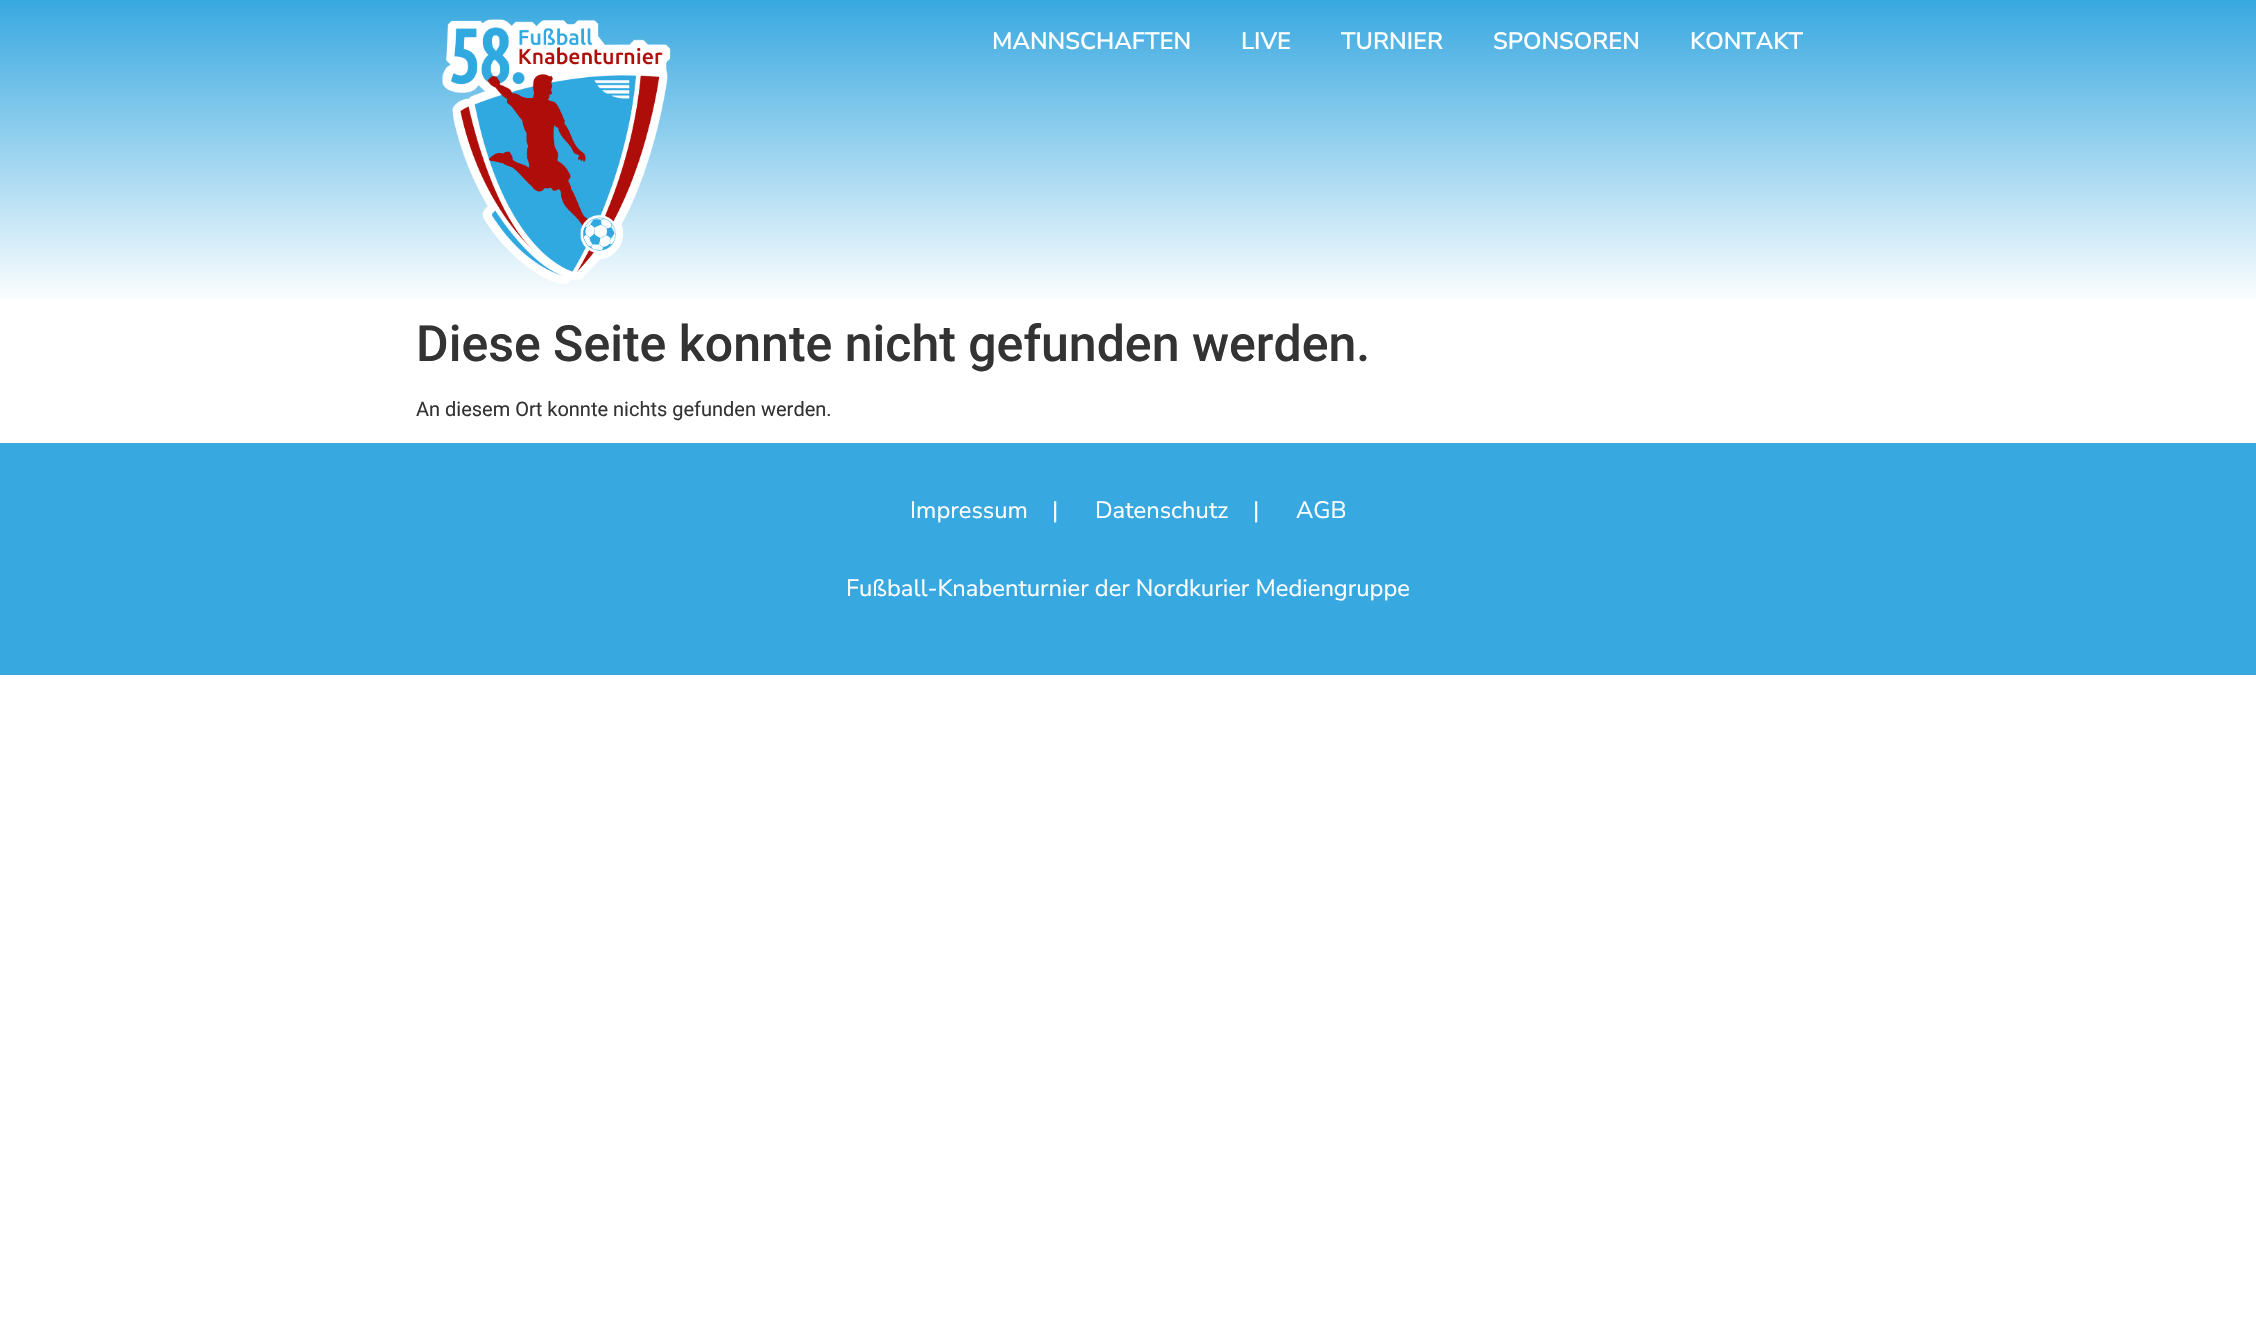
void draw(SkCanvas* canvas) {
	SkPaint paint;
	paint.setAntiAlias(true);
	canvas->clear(0xffffffff);
	{
		const SkColor colors[] = {0xff38a8e0, 0xffffffff};
		const float stops[] = {0, 1};
		const SkPoint ends[] = {{1128, 0}, {1128, 305}};
		paint.setShader(SkGradientShader::MakeLinear(ends, colors, stops, 2, SkTileMode::kClamp));
		paint.setAlpha(255);
	}
	canvas->drawRect(SkRect::MakeXYWH(0, 0, 2256, 301), paint);
	canvas->drawImageRect(SkImages::DeferredFromEncodedData(SkData::MakeFromFileName("img1.png")), SkRect::MakeXYWH(442, 19, 229, 265), SkSamplingOptions());
	SkFont f1(fontMgr->matchFamilyStyle("Nunito Sans", SkFontStyle(600, SkFontStyle::kNormal_Width, SkFontStyle::kUpright_Slant)), 23.75);
	f1.setSubpixel(true);
	paint.setShader(nullptr);
	paint.setColor(0xffffffff);
	canvas->drawString("MANNSCHAFTEN", 992, 49, f1, paint);
	canvas->drawString("LIVE", 1241, 49, f1, paint);
	canvas->drawString("TURNIER", 1341, 49, f1, paint);
	canvas->drawString("SPONSOREN", 1493, 49, f1, paint);
	canvas->drawString("KONTAKT", 1690, 49, f1, paint);
	SkFont f2(fontMgr->matchFamilyStyle("Roboto", SkFontStyle(500, SkFontStyle::kNormal_Width, SkFontStyle::kUpright_Slant)), 50);
	f2.setSubpixel(true);
	paint.setColor(0xff333333);
	canvas->drawString("Diese Seite konnte nicht gefunden werden.", 416, 361, f2, paint);
	SkFont f3(fontMgr->matchFamilyStyle("Roboto", SkFontStyle::Normal()), 20);
	f3.setSubpixel(true);
	canvas->drawString("An diesem Ort konnte nichts gefunden werden.", 416, 416, f3, paint);
	paint.setColor(0xff38a8e0);
	canvas->drawRect(SkRect::MakeXYWH(0, 443, 2256, 232), paint);
	SkFont f4(fontMgr->matchFamilyStyle("Nunito Sans", SkFontStyle::Normal()), 23.75);
	f4.setSubpixel(true);
	paint.setColor(0xffffffff);
	canvas->drawString("Impressum", 910, 518, f4, paint);
	canvas->drawString("|", 1052, 518, f4, paint);
	canvas->drawString("Datenschutz", 1095, 518, f4, paint);
	canvas->drawString("|", 1253, 518, f4, paint);
	canvas->drawString("AGB", 1296, 518, f4, paint);
	canvas->drawString("Fußball-Knabenturnier der Nordkurier Mediengruppe", 846, 596, f4, paint);
}
